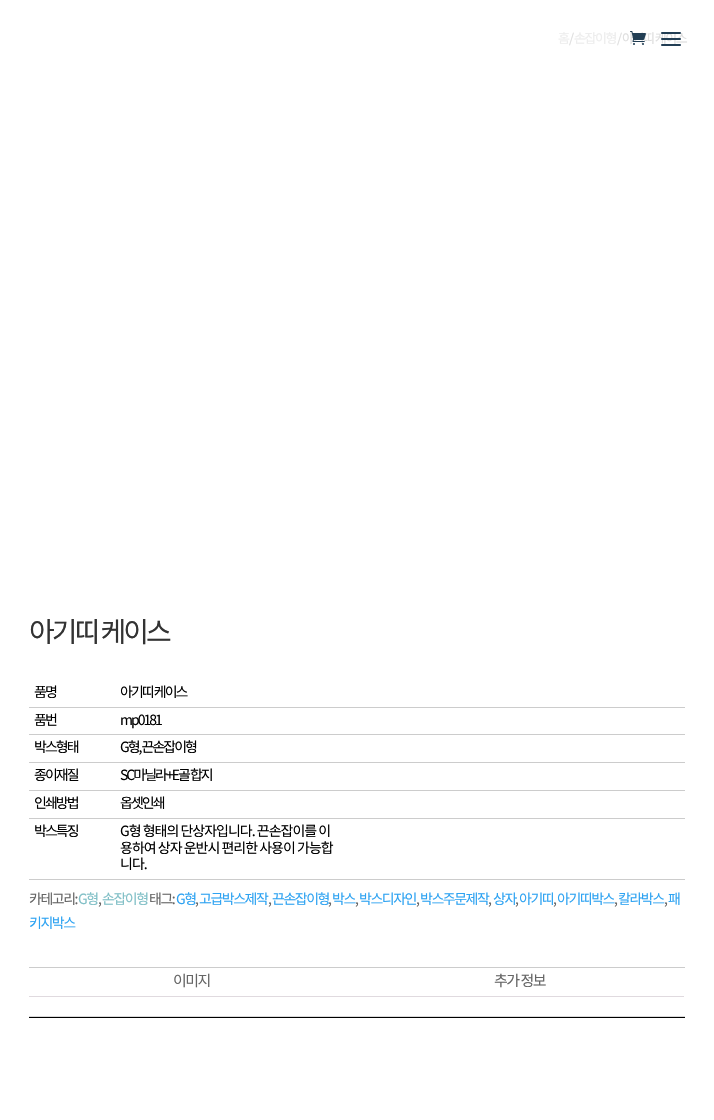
void draw(SkCanvas* canvas) {
	SkPaint paint;
	paint.setAntiAlias(true);
	auto spacedText = [&](const char* s, float x, float y, const SkFont& font, const SkPaint& ink, float letter, float word) {
		std::vector<SkGlyphID> glyphs(font.countText(s, strlen(s), SkTextEncoding::kUTF8));
		std::vector<float> xs(glyphs.size());
		font.textToGlyphs(s, strlen(s), SkTextEncoding::kUTF8, glyphs);
		font.getXPos(glyphs, xs, x);
		float extra = 0;
		for (size_t i = 0; i < glyphs.size(); i++) {
			xs[i] += extra;
			extra += letter + word * (glyphs[i] == font.unicharToGlyph(' '));
		}
		canvas->drawTextBlob(SkTextBlob::MakeFromPosHGlyphs(glyphs, xs, y, font), 0, 0, ink);
	};
	canvas->clear(0xffffffff);
	SkFont f1(fontMgr->matchFamilyStyle("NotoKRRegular", SkFontStyle::Normal()), 13);
	f1.setSubpixel(true);
	paint.setColor(0xffdedede);
	spacedText("/ 아기띠 케이스", 617, 43, f1, paint, -1.5, 0);
	canvas->drawImageRect(SkImages::DeferredFromEncodedData(SkData::MakeFromFileName("img1.png")), SkRect::MakeXYWH(630, 31, 16, 14), SkSamplingOptions());
	canvas->drawImageRect(SkImages::DeferredFromEncodedData(SkData::MakeFromFileName("img2.png")), SkRect::MakeXYWH(661, 32, 20, 14), SkSamplingOptions());
	paint.setColor(0xffededed);
	spacedText("홈", 558, 43, f1, paint, -1.5, 0);
	paint.setColor(0xffdedede);
	spacedText("/", 569, 43, f1, paint, -1.5, 0);
	paint.setColor(0xffededed);
	spacedText("손잡이형", 574, 43, f1, paint, -1.5, 0);
	SkFont f2(fontMgr->matchFamilyStyle("NotoKRRegular", SkFontStyle::Normal()), 28);
	f2.setSubpixel(true);
	paint.setColor(0xff333333);
	spacedText("아기띠 케이스", 29, 642, f2, paint, -3, 0);
	paint.setColor(0xffcccccc);
	canvas->drawRect(SkRect::MakeXYWH(29, 707, 656, 1), paint);
	SkFont f3(fontMgr->matchFamilyStyle("NotoKRRegular", SkFontStyle::Normal()), 14);
	f3.setSubpixel(true);
	paint.setColor(0xff000000);
	spacedText("품명", 34, 697, f3, paint, -2, 0);
	spacedText("아기띠 케이스", 120, 697, f3, paint, -2, 0);
	paint.setColor(0xffcccccc);
	canvas->drawRect(SkRect::MakeXYWH(29, 734, 656, 1), paint);
	paint.setColor(0xff000000);
	spacedText("품번", 34, 725, f3, paint, -2, 0);
	spacedText("mp0181", 120, 725, f3, paint, -2, 0);
	paint.setColor(0xffcccccc);
	canvas->drawRect(SkRect::MakeXYWH(29, 762, 656, 1), paint);
	paint.setColor(0xff000000);
	spacedText("박스형태", 34, 752, f3, paint, -2, 0);
	spacedText("G형, 끈손잡이형", 120, 752, f3, paint, -2, 0);
	paint.setColor(0xffcccccc);
	canvas->drawRect(SkRect::MakeXYWH(29, 790, 656, 1), paint);
	paint.setColor(0xff000000);
	spacedText("종이재질", 34, 780, f3, paint, -2, 0);
	spacedText("SC마닐라+E골 합지", 120, 780, f3, paint, -2, 0);
	paint.setColor(0xffcccccc);
	canvas->drawRect(SkRect::MakeXYWH(29, 818, 656, 1), paint);
	paint.setColor(0xff000000);
	spacedText("인쇄방법", 34, 808, f3, paint, -2, 0);
	spacedText("옵셋인쇄", 120, 808, f3, paint, -2, 0);
	paint.setColor(0xffcccccc);
	canvas->drawRect(SkRect::MakeXYWH(29, 879, 656, 1), paint);
	paint.setColor(0xff000000);
	spacedText("박스특징", 34, 836, f3, paint, -2, 0);
	spacedText("G형 형태의 단상자입니다. 끈손잡이를 이", 120, 836, f3, paint, -1, 0);
	spacedText("용하여 상자 운반시 편리한 사용이 가능합", 120, 853, f3, paint, -1, 0);
	spacedText("니다.", 120, 869, f3, paint, -1, 0);
	paint.setColor(0xff666666);
	spacedText("카테고리:", 29, 904, f3, paint, -1.5, 0);
	paint.setColor(0xff82c0c7);
	spacedText("G형", 78, 904, f3, paint, -1.5, 0);
	paint.setColor(0xff666666);
	spacedText(",", 98, 904, f3, paint, -1.5, 0);
	paint.setColor(0xff82c0c7);
	spacedText("손잡이형", 102, 904, f3, paint, -1.5, 0);
	paint.setColor(0xff666666);
	spacedText("태그:", 149, 904, f3, paint, -1.5, 0);
	paint.setColor(0xff2ea3f2);
	spacedText("G형", 176, 904, f3, paint, -1.5, 0);
	paint.setColor(0xff666666);
	spacedText(",", 195, 904, f3, paint, -1.5, 0);
	paint.setColor(0xff2ea3f2);
	spacedText("고급박스제작", 199, 904, f3, paint, -1.5, 0);
	paint.setColor(0xff666666);
	spacedText(",", 268, 904, f3, paint, -1.5, 0);
	paint.setColor(0xff2ea3f2);
	spacedText("끈손잡이형", 272, 904, f3, paint, -1.5, 0);
	paint.setColor(0xff666666);
	spacedText(",", 328, 904, f3, paint, -1.5, 0);
	paint.setColor(0xff2ea3f2);
	spacedText("박스", 332, 904, f3, paint, -1.5, 0);
	paint.setColor(0xff666666);
	spacedText(",", 355, 904, f3, paint, -1.5, 0);
	paint.setColor(0xff2ea3f2);
	spacedText("박스디자인", 359, 904, f3, paint, -1.5, 0);
	paint.setColor(0xff666666);
	spacedText(",", 416, 904, f3, paint, -1.5, 0);
	paint.setColor(0xff2ea3f2);
	spacedText("박스주문제작", 420, 904, f3, paint, -1.5, 0);
	paint.setColor(0xff666666);
	spacedText(",", 488, 904, f3, paint, -1.5, 0);
	paint.setColor(0xff2ea3f2);
	spacedText("상자", 493, 904, f3, paint, -1.5, 0);
	paint.setColor(0xff666666);
	spacedText(",", 515, 904, f3, paint, -1.5, 0);
	paint.setColor(0xff2ea3f2);
	spacedText("아기띠", 519, 904, f3, paint, -1.5, 0);
	paint.setColor(0xff666666);
	spacedText(",", 553, 904, f3, paint, -1.5, 0);
	paint.setColor(0xff2ea3f2);
	spacedText("아기띠박스", 557, 904, f3, paint, -1.5, 0);
	paint.setColor(0xff666666);
	spacedText(",", 614, 904, f3, paint, -1.5, 0);
	paint.setColor(0xff2ea3f2);
	spacedText("칼라박스", 618, 904, f3, paint, -1.5, 0);
	paint.setColor(0xff666666);
	spacedText(",", 664, 904, f3, paint, -1.5, 0);
	paint.setColor(0xff2ea3f2);
	spacedText("패", 668, 904, f3, paint, -1.5, 0);
	spacedText("키지박스", 29, 928, f3, paint, -1.5, 0);
	paint.setColor(0xffcccccc);
	canvas->drawRect(SkRect::MakeXYWH(29, 967, 656, 1), paint);
	paint.setColor(0xff000000);
	canvas->drawRect(SkRect::MakeXYWH(29, 1017, 656, 1), paint);
	paint.setColor(0xffe0dadf);
	canvas->drawRect(SkRect::MakeXYWH(29, 996, 655, 1), paint);
	SkFont f4(fontMgr->matchFamilyStyle("NotoKRRegular", SkFontStyle::Normal()), 15);
	f4.setSubpixel(true);
	paint.setColor(0xff666666);
	spacedText("이미지", 173, 986, f4, paint, -1.5, 0);
	spacedText("추가 정보", 494, 986, f4, paint, -1.5, 0);
	paint.setColor(0xffd9d9d9);
	canvas->drawRect(SkRect::MakeXYWH(29, 1016, 656, 1), paint);
}
